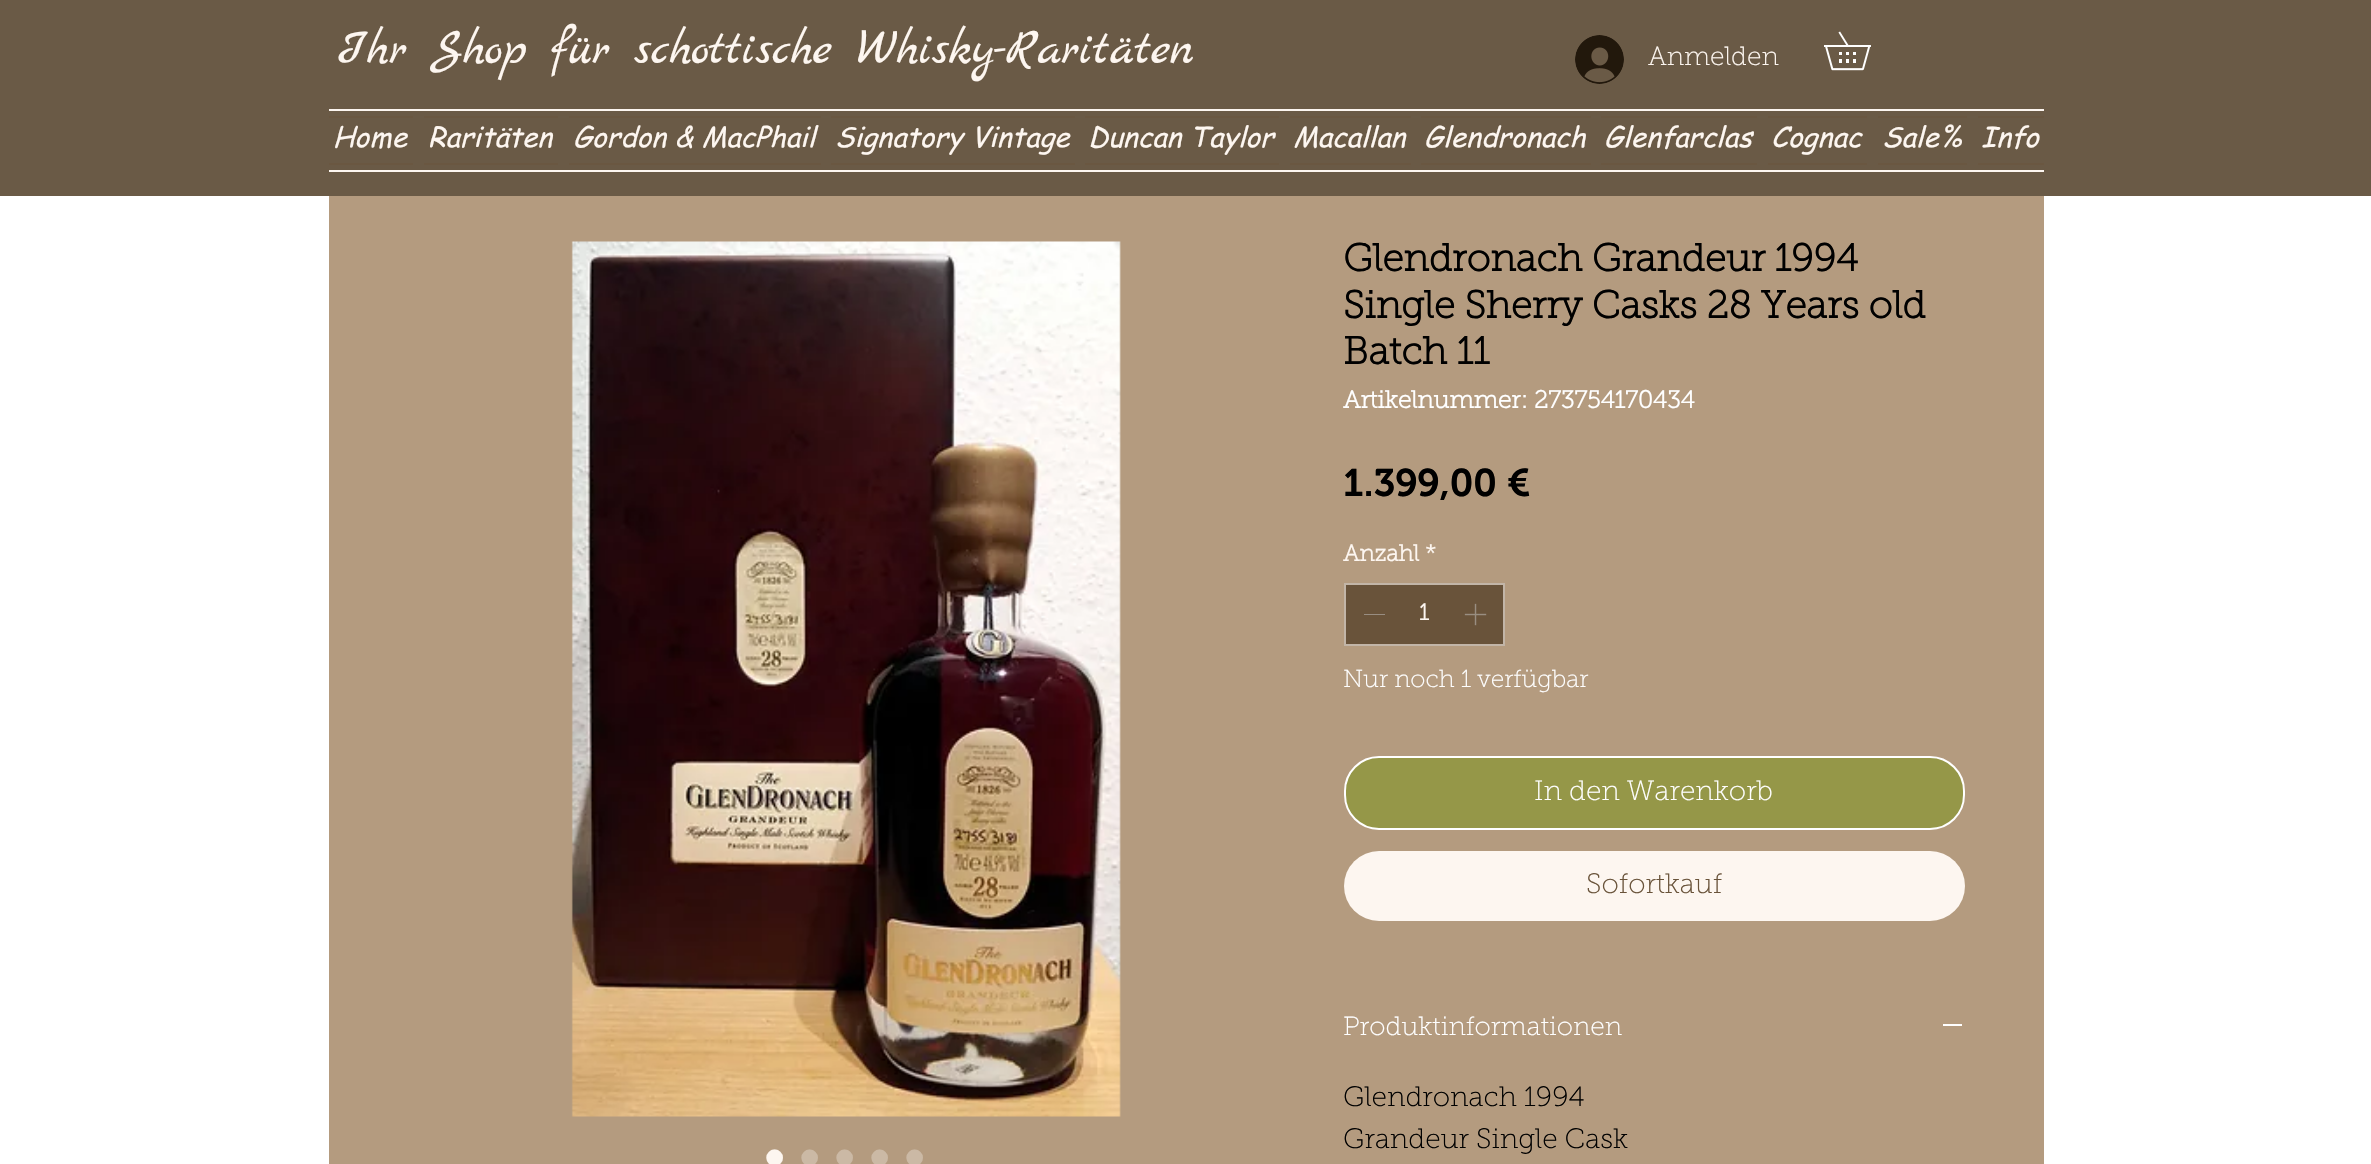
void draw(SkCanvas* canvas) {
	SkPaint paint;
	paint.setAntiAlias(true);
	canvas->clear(0xffffffff);
	paint.setColor(0xff6a5a46);
	canvas->drawRect(SkRect::MakeXYWH(0, 0, 2371, 196), paint);
	SkFont f1(fontMgr->matchFamilyStyle("Marck Script", SkFontStyle::Normal()), 50.75);
	f1.setSubpixel(true);
	paint.setColor(0xfffdf6f0);
	canvas->drawString("Ihr Shop für schottische Whisky-Raritäten", 337, 63, f1, paint);
	canvas->drawImageRect(SkImages::DeferredFromEncodedData(SkData::MakeFromFileName("img1.png")), SkRect::MakeXYWH(1575, 35, 49, 49), SkSamplingOptions());
	SkFont f2(fontMgr->matchFamilyStyle("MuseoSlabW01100", SkFontStyle(100, SkFontStyle::kNormal_Width, SkFontStyle::kUpright_Slant)), 26.25);
	f2.setSubpixel(true);
	canvas->drawString("Anmelden", 1648, 65, f2, paint);
	canvas->drawImageRect(SkImages::DeferredFromEncodedData(SkData::MakeFromFileName("img2.png")), SkRect::MakeXYWH(1824, 31, 47, 40), SkSamplingOptions());
	canvas->drawRect(SkRect::MakeXYWH(329, 109, 1715, 2), paint);
	paint.setColor(0xff6a5741);
	canvas->drawRect(SkRect::MakeXYWH(329, 116, 84, 2), paint);
	canvas->drawRect(SkRect::MakeXYWH(329, 163, 84, 2), paint);
	SkFont f3(fontMgr->matchFamilyStyle("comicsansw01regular", SkFontStyle::Italic()), 28);
	f3.setSubpixel(true);
	paint.setColor(0xfffdf6f0);
	canvas->drawString("Home", 333, 147, f3, paint);
	paint.setColor(0xff6a5741);
	canvas->drawRect(SkRect::MakeXYWH(424, 116, 134, 2), paint);
	canvas->drawRect(SkRect::MakeXYWH(424, 163, 134, 2), paint);
	paint.setColor(0xfffdf6f0);
	canvas->drawString("Raritäten", 428, 147, f3, paint);
	paint.setColor(0xff6a5741);
	canvas->drawRect(SkRect::MakeXYWH(569, 116, 252, 2), paint);
	canvas->drawRect(SkRect::MakeXYWH(569, 163, 252, 2), paint);
	paint.setColor(0xfffdf6f0);
	canvas->drawString("Gordon & MacPhail", 573, 147, f3, paint);
	paint.setColor(0xff6a5741);
	canvas->drawRect(SkRect::MakeXYWH(831, 116, 244, 2), paint);
	canvas->drawRect(SkRect::MakeXYWH(831, 163, 244, 2), paint);
	paint.setColor(0xfffdf6f0);
	canvas->drawString("Signatory Vintage", 835, 147, f3, paint);
	paint.setColor(0xff6a5741);
	canvas->drawRect(SkRect::MakeXYWH(1085, 116, 194, 2), paint);
	canvas->drawRect(SkRect::MakeXYWH(1085, 163, 194, 2), paint);
	paint.setColor(0xfffdf6f0);
	canvas->drawString("Duncan Taylor", 1088, 147, f3, paint);
	paint.setColor(0xff6a5741);
	canvas->drawRect(SkRect::MakeXYWH(1290, 116, 121, 2), paint);
	canvas->drawRect(SkRect::MakeXYWH(1290, 163, 121, 2), paint);
	paint.setColor(0xfffdf6f0);
	canvas->drawString("Macallan", 1293, 147, f3, paint);
	paint.setColor(0xff6a5741);
	canvas->drawRect(SkRect::MakeXYWH(1421, 116, 170, 2), paint);
	canvas->drawRect(SkRect::MakeXYWH(1421, 163, 170, 2), paint);
	paint.setColor(0xfffdf6f0);
	canvas->drawString("Glendronach", 1424, 147, f3, paint);
	paint.setColor(0xff6a5741);
	canvas->drawRect(SkRect::MakeXYWH(1601, 116, 156, 2), paint);
	canvas->drawRect(SkRect::MakeXYWH(1601, 163, 156, 2), paint);
	paint.setColor(0xfffdf6f0);
	canvas->drawString("Glenfarclas", 1604, 147, f3, paint);
	paint.setColor(0xff6a5741);
	canvas->drawRect(SkRect::MakeXYWH(1768, 116, 99, 2), paint);
	canvas->drawRect(SkRect::MakeXYWH(1768, 163, 99, 2), paint);
	paint.setColor(0xfffdf6f0);
	canvas->drawString("Cognac", 1771, 147, f3, paint);
	paint.setColor(0xff6a5741);
	canvas->drawRect(SkRect::MakeXYWH(1878, 116, 89, 2), paint);
	canvas->drawRect(SkRect::MakeXYWH(1878, 163, 89, 2), paint);
	paint.setColor(0xfffdf6f0);
	canvas->drawString("Sale%", 1882, 147, f3, paint);
	paint.setColor(0xff6a5741);
	canvas->drawRect(SkRect::MakeXYWH(1978, 116, 66, 2), paint);
	canvas->drawRect(SkRect::MakeXYWH(1978, 163, 66, 2), paint);
	paint.setColor(0xfffdf6f0);
	canvas->drawString("Info", 1981, 147, f3, paint);
	canvas->drawRect(SkRect::MakeXYWH(329, 170, 1715, 2), paint);
	paint.setColor(0xffb49b7f);
	canvas->drawRect(SkRect::MakeXYWH(329, 196, 1715, 968), paint);
	SkFont f4(fontMgr->matchFamilyStyle("MuseoSlabW01100", SkFontStyle::Bold()), 38.5);
	f4.setSubpixel(true);
	paint.setColor(0xff000000);
	canvas->drawString("Glendronach Grandeur 1994", 1343, 271, f4, paint);
	canvas->drawString("Single Sherry Casks 28 Years old", 1343, 318, f4, paint);
	canvas->drawString("Batch 11", 1343, 364, f4, paint);
	SkFont f5(fontMgr->matchFamilyStyle("MuseoSlabW01100", SkFontStyle::Bold()), 24.5);
	f5.setSubpixel(true);
	paint.setColor(0xffffffff);
	canvas->drawString("Artikelnummer: 273754170434", 1343, 408, f5, paint);
	SkFont f6(fontMgr->matchFamilyStyle("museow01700", SkFontStyle(600, SkFontStyle::kNormal_Width, SkFontStyle::kUpright_Slant)), 38.5);
	f6.setSubpixel(true);
	paint.setColor(0xff000000);
	canvas->drawString("1.399,00 €", 1343, 496, f6, paint);
	SkFont f7(fontMgr->matchFamilyStyle("MuseoSlabW01100", SkFontStyle::Bold()), 23);
	f7.setSubpixel(true);
	paint.setColor(0xfffdf6f0);
	canvas->drawString("Anzahl", 1343, 561, f7, paint);
	canvas->drawString("*", 1425, 561, f7, paint);
	paint.setColor(0xff69533a);
	canvas->drawRect(SkRect::MakeXYWH(1345, 584, 159, 61), paint);
	paint.setStroke(true);
	paint.setStrokeWidth(2);
	paint.setColor(0xffc2b5a7);
	canvas->drawRect(SkRect::MakeXYWH(1345, 584, 159, 61), paint);
	paint.setStroke(false);
	paint.setColor(0xff988d81);
	canvas->drawRect(SkRect::MakeXYWH(1364, 614, 21, 1), paint);
	paint.setColor(0xfffdf6f0);
	canvas->drawString("1", 1419, 620, f7, paint);
	canvas->drawImageRect(SkImages::DeferredFromEncodedData(SkData::MakeFromFileName("img3.png")), SkRect::MakeXYWH(1464, 603, 23, 23), SkSamplingOptions());
	SkFont f8(fontMgr->matchFamilyStyle("MuseoSlabW01100", SkFontStyle(100, SkFontStyle::kNormal_Width, SkFontStyle::kUpright_Slant)), 24.5);
	f8.setSubpixel(true);
	paint.setColor(0xffffffff);
	canvas->drawString("Nur noch 1 verfügbar", 1343, 687, f8, paint);
	paint.setColor(0xff959748);
	canvas->drawRoundRect(SkRect::MakeXYWH(1345, 757, 619, 72), 34, 34, paint);
	paint.setStroke(true);
	paint.setColor(0xffffffff);
	canvas->drawRoundRect(SkRect::MakeXYWH(1345, 757, 619, 72), 34, 34, paint);
	SkFont f9(fontMgr->matchFamilyStyle("MuseoSlabW01100", SkFontStyle(100, SkFontStyle::kNormal_Width, SkFontStyle::kUpright_Slant)), 28);
	f9.setSubpixel(true);
	paint.setStroke(false);
	canvas->drawString("In den Warenkorb", 1534, 800, f9, paint);
	paint.setColor(0xfffdf6f0);
	canvas->drawRoundRect(SkRect::MakeXYWH(1344, 851, 621, 70), 35, 35, paint);
	paint.setColor(0xff69533a);
	canvas->drawString("Sofortkauf", 1586, 893, f9, paint);
	paint.setColor(0xffffffff);
	canvas->drawString("Produktinformationen", 1343, 1035, f2, paint);
	canvas->drawRect(SkRect::MakeXYWH(1943, 1024, 19, 2), paint);
	paint.setColor(0xff000000);
	canvas->drawString("Glendronach 1994", 1343, 1106, f9, paint);
	canvas->drawString("Grandeur Single Cask", 1343, 1148, f9, paint);
	canvas->drawImageRect(SkImages::DeferredFromEncodedData(SkData::MakeFromFileName("img4.png")), SkRect::MakeXYWH(571, 241, 550, 876), SkSamplingOptions());
	SkFont f10(fontMgr->matchFamilyStyle("Liberation Sans", SkFontStyle::Normal()), 61);
	f10.setSubpixel(true);
	paint.setColor(0xfffdf6f0);
	canvas->drawString("•", 764, 1178, f10, paint);
	paint.setColor(0xffcbb9a5);
	canvas->drawString("•", 799, 1178, f10, paint);
	canvas->drawString("•", 834, 1178, f10, paint);
	canvas->drawString("•", 869, 1178, f10, paint);
	canvas->drawString("•", 904, 1178, f10, paint);
}
